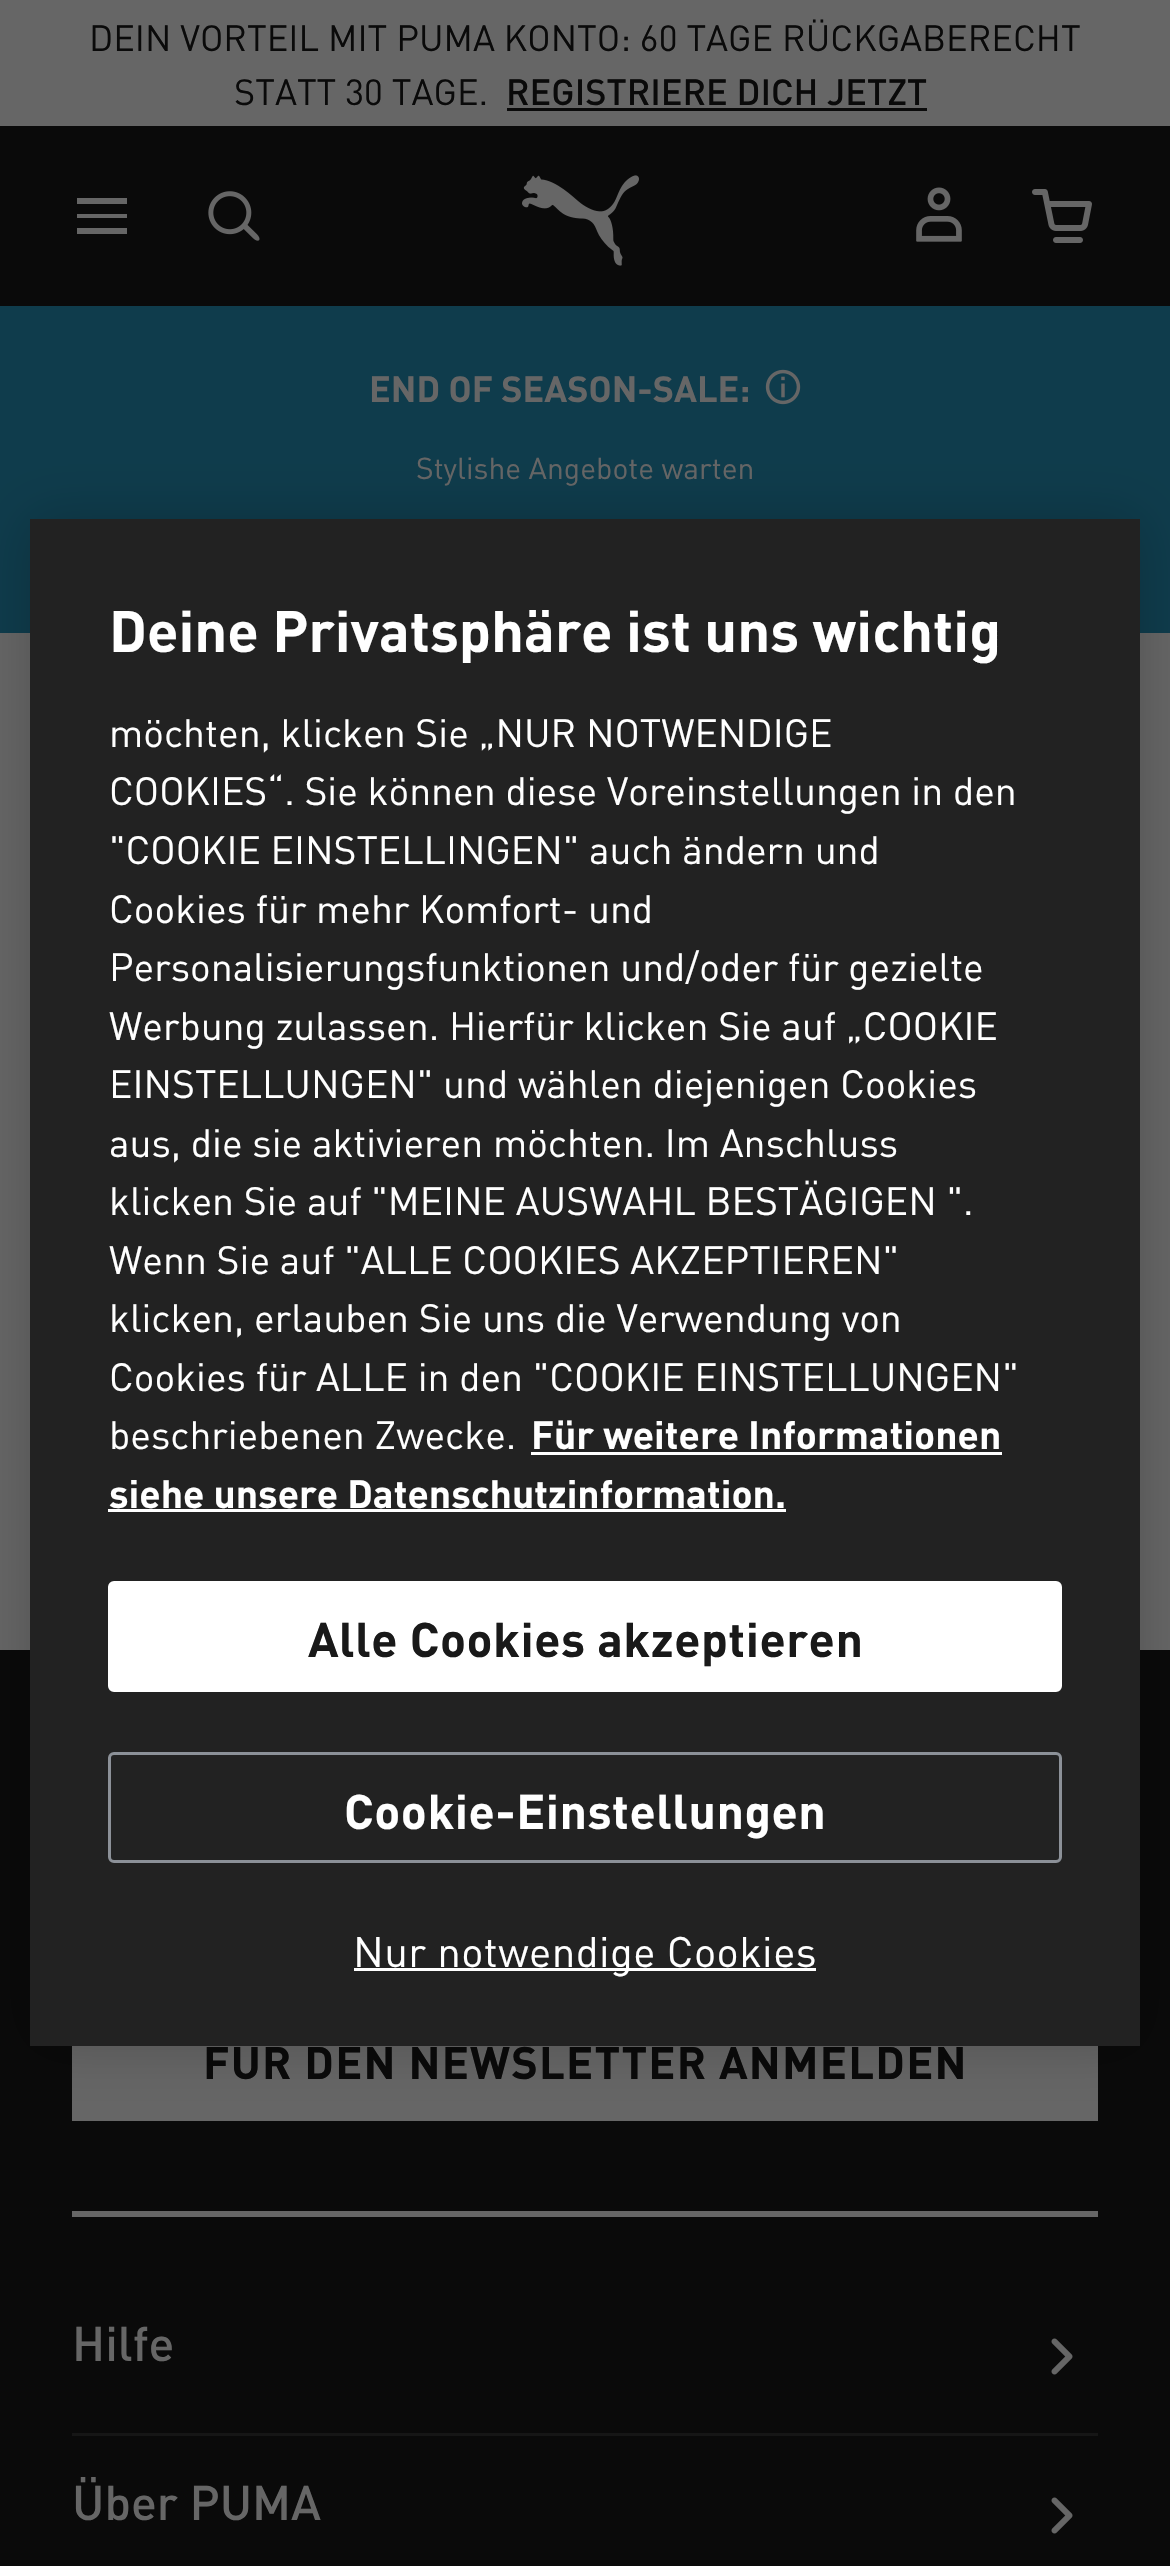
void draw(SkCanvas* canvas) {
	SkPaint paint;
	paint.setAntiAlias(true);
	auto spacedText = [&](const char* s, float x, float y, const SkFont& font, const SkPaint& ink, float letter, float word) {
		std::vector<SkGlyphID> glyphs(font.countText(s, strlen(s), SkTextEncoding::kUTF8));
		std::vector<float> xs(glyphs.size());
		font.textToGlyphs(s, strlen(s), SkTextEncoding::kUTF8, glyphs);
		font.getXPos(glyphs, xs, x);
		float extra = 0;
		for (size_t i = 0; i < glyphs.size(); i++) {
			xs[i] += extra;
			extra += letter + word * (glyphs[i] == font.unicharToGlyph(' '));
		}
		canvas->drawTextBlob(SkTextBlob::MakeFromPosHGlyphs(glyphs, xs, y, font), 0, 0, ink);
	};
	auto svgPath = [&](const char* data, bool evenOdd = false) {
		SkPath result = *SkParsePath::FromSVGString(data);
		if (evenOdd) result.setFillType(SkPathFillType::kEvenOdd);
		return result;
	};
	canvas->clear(0xff666666);
	SkFont f1(fontMgr->matchFamilyStyle("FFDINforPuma", SkFontStyle::Normal()), 36);
	f1.setSubpixel(true);
	paint.setColor(0xff0a0a0a);
	canvas->drawString("DEIN VORTEIL MIT PUMA KONTO: 60 TAGE RÜCKGABERECHT", 89, 51, f1, paint);
	canvas->drawString("STATT 30 TAGE.", 234, 105, f1, paint);
	SkFont f2(fontMgr->matchFamilyStyle("FFDINforPuma", SkFontStyle(500, SkFontStyle::kNormal_Width, SkFontStyle::kUpright_Slant)), 36);
	f2.setSubpixel(true);
	canvas->drawString("REGISTRIERE DICH JETZT", 506, 105, f2, paint);
	canvas->drawRect(SkRect::MakeXYWH(507, 108, 420, 3), paint);
	canvas->drawRect(SkRect::MakeXYWH(0, 126, 1170, 180), paint);
	paint.setColor(0xff666666);
	canvas->drawPath(svgPath("M77 204V198H127V204ZM77 218H127V214H77ZM77 234H127V228H77Z"), paint);
	canvas->drawImageRect(SkImages::DeferredFromEncodedData(SkData::MakeFromFileName("img1.png")), SkRect::MakeXYWH(208, 191, 52, 50), SkSamplingOptions());
	canvas->drawImageRect(SkImages::DeferredFromEncodedData(SkData::MakeFromFileName("img2.png")), SkRect::MakeXYWH(522, 175, 117, 91), SkSamplingOptions());
	canvas->drawImageRect(SkImages::DeferredFromEncodedData(SkData::MakeFromFileName("img3.png")), SkRect::MakeXYWH(916, 187, 46, 55), SkSamplingOptions());
	canvas->drawImageRect(SkImages::DeferredFromEncodedData(SkData::MakeFromFileName("img4.png")), SkRect::MakeXYWH(1032, 189, 60, 54), SkSamplingOptions());
	paint.setColor(0xff0f3c4c);
	canvas->drawRect(SkRect::MakeXYWH(0, 306, 1170, 327), paint);
	SkFont f3(fontMgr->matchFamilyStyle("FFDINforPuma", SkFontStyle::Bold()), 36);
	f3.setSubpixel(true);
	paint.setColor(0xff666666);
	canvas->drawString("END OF SEASON-SALE:", 369, 402, f3, paint);
	canvas->drawImageRect(SkImages::DeferredFromEncodedData(SkData::MakeFromFileName("img5.png")), SkRect::MakeXYWH(765, 369, 36, 36), SkSamplingOptions());
	SkFont f4(fontMgr->matchFamilyStyle("FFDINforPuma", SkFontStyle::Normal()), 30);
	f4.setSubpixel(true);
	canvas->drawString("Stylishe Angebote warten", 416, 479, f4, paint);
	paint.setColor(0xff0a0a0a);
	canvas->drawRect(SkRect::MakeXYWH(0, 1650, 1170, 916), paint);
	paint.setColor(0xff666666);
	canvas->drawRect(SkRect::MakeXYWH(72, 2046, 1026, 75), paint);
	SkFont f5(fontMgr->matchFamilyStyle("FFDINforPuma", SkFontStyle::Bold()), 45);
	f5.setSubpixel(true);
	paint.setColor(0xff0a0a0a);
	spacedText("FÜR DEN NEWSLETTER ANMELDEN", 203, 2079, f5, paint, 1.2, 0);
	paint.setColor(0xff666666);
	canvas->drawRect(SkRect::MakeXYWH(72, 2211, 1026, 6), paint);
	paint.setColor(0xff161616);
	canvas->drawRect(SkRect::MakeXYWH(72, 2433, 1026, 3), paint);
	SkFont f6(fontMgr->matchFamilyStyle("FFDINforPuma", SkFontStyle(500, SkFontStyle::kNormal_Width, SkFontStyle::kUpright_Slant)), 48);
	f6.setSubpixel(true);
	paint.setColor(0xff666666);
	canvas->drawString("Hilfe", 72, 2361, f6, paint);
	canvas->drawImageRect(SkImages::DeferredFromEncodedData(SkData::MakeFromFileName("img6.png")), SkRect::MakeXYWH(1051, 2338, 22, 37), SkSamplingOptions());
	canvas->drawString("Über PUMA", 72, 2520, f6, paint);
	canvas->drawImageRect(SkImages::DeferredFromEncodedData(SkData::MakeFromFileName("img6.png")), SkRect::MakeXYWH(1051, 2497, 22, 37), SkSamplingOptions());
	paint.setColor(0x33000000);
	paint.setMaskFilter(SkMaskFilter::MakeBlur(kNormal_SkBlurStyle, 27));
	canvas->drawRect(SkRect::MakeXYWH(30, 519, 1110, 1527), paint);
	paint.setMaskFilter(nullptr);
	paint.setColor(0xff222222);
	canvas->drawRect(SkRect::MakeXYWH(30, 519, 1110, 1527), paint);
	SkFont f7(fontMgr->matchFamilyStyle("FFDINforPuma", SkFontStyle::Bold()), 57.6);
	f7.setSubpixel(true);
	paint.setColor(0xffffffff);
	canvas->drawString("Deine Privatsphäre ist uns wichtig", 109, 652, f7, paint);
	SkFont f8(fontMgr->matchFamilyStyle("FFDINforPuma", SkFontStyle::Normal()), 39);
	f8.setSubpixel(true);
	canvas->drawString("möchten, klicken Sie „NUR NOTWENDIGE", 109, 747, f8, paint);
	canvas->drawString("COOKIES“. Sie können diese Voreinstellungen in den", 109, 805, f8, paint);
	canvas->drawString("\"COOKIE EINSTELLINGEN\" auch ändern und", 109, 864, f8, paint);
	canvas->drawString("Cookies für mehr Komfort- und", 109, 923, f8, paint);
	canvas->drawString("Personalisierungsfunktionen und/oder für gezielte", 109, 981, f8, paint);
	canvas->drawString("Werbung zulassen. Hierfür klicken Sie auf „COOKIE", 109, 1040, f8, paint);
	canvas->drawString("EINSTELLUNGEN\" und wählen diejenigen Cookies", 109, 1098, f8, paint);
	canvas->drawString("aus, die sie aktivieren möchten. Im Anschluss", 109, 1157, f8, paint);
	canvas->drawString("klicken Sie auf \"MEINE AUSWAHL BESTÄGIGEN \".", 109, 1215, f8, paint);
	canvas->drawString("Wenn Sie auf \"ALLE COOKIES AKZEPTIEREN\"", 109, 1274, f8, paint);
	canvas->drawString("klicken, erlauben Sie uns die Verwendung von", 109, 1332, f8, paint);
	canvas->drawString("Cookies für ALLE in den \"COOKIE EINSTELLUNGEN\"", 109, 1391, f8, paint);
	canvas->drawString("beschriebenen Zwecke.", 109, 1449, f8, paint);
	SkFont f9(fontMgr->matchFamilyStyle("FFDINforPuma", SkFontStyle::Bold()), 39);
	f9.setSubpixel(true);
	canvas->drawString("Für weitere Informationen", 531, 1449, f9, paint);
	canvas->drawRect(SkRect::MakeXYWH(531, 1452, 471, 3), paint);
	canvas->drawString("siehe unsere Datenschutzinformation.", 109, 1508, f9, paint);
	canvas->drawRect(SkRect::MakeXYWH(108, 1509, 678, 3), paint);
	canvas->drawRoundRect(SkRect::MakeXYWH(109.5, 1582.5, 951, 108), 4.5, 4.5, paint);
	paint.setStroke(true);
	paint.setStrokeWidth(3);
	canvas->drawRoundRect(SkRect::MakeXYWH(109.5, 1582.5, 951, 108), 4.5, 4.5, paint);
	SkFont f10(fontMgr->matchFamilyStyle("FFDINforPuma", SkFontStyle::Bold()), 48);
	f10.setSubpixel(true);
	paint.setStroke(false);
	paint.setColor(0xff191919);
	spacedText("Alle Cookies akzeptieren", 308, 1657, f10, paint, 0.5, 0);
	paint.setStroke(true);
	paint.setColor(0xff8c9198);
	canvas->drawRoundRect(SkRect::MakeXYWH(109.5, 1753.5, 951, 108), 4.5, 4.5, paint);
	paint.setStroke(false);
	paint.setColor(0xffffffff);
	spacedText("Cookie-Einstellungen", 344, 1829, f10, paint, 0.5, 0);
	canvas->drawRect(SkRect::MakeXYWH(354, 1968, 462, 3), paint);
	SkFont f11(fontMgr->matchFamilyStyle("FFDINforPuma", SkFontStyle::Normal()), 42);
	f11.setSubpixel(true);
	spacedText("Nur notwendige Cookies", 353, 1967, f11, paint, 0.4, 0);
}
